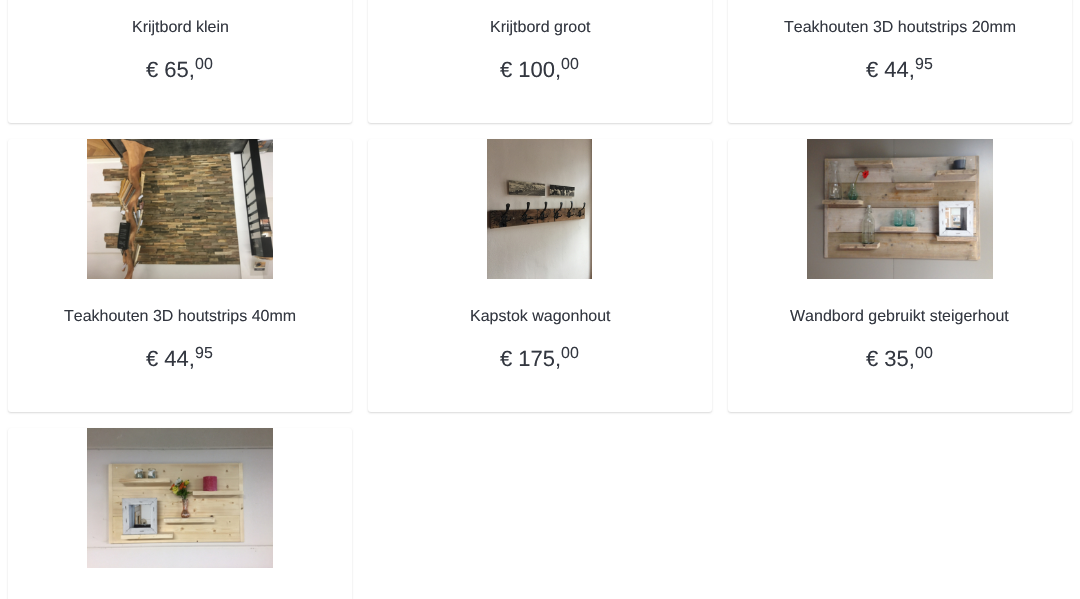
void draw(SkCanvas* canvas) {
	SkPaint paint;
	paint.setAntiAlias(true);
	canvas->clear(0xffffffff);
	paint.setColor(0x26000000);
	paint.setMaskFilter(SkMaskFilter::MakeBlur(kNormal_SkBlurStyle, 1));
	canvas->drawRoundRect(SkRect::MakeXYWH(8, -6, 344, 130), 3, 3, paint);
	paint.setMaskFilter(nullptr);
	paint.setColor(0xffffffff);
	canvas->drawRoundRect(SkRect::MakeXYWH(8, -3, 344, 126), 3, 3, paint);
	SkFont f1(fontMgr->matchFamilyStyle("Liberation Sans", SkFontStyle::Normal()), 16);
	f1.setSubpixel(true);
	paint.setColor(0xff333740);
	canvas->drawString("Krijtbord klein", 132, 32, f1, paint);
	SkFont f2(fontMgr->matchFamilyStyle("Liberation Sans", SkFontStyle::Normal()), 22);
	f2.setSubpixel(true);
	canvas->drawString("€ 65,", 146, 77, f2, paint);
	canvas->drawString("00", 195, 69, f1, paint);
	paint.setColor(0x26000000);
	paint.setMaskFilter(SkMaskFilter::MakeBlur(kNormal_SkBlurStyle, 1));
	canvas->drawRoundRect(SkRect::MakeXYWH(368, -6, 344, 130), 3, 3, paint);
	paint.setMaskFilter(nullptr);
	paint.setColor(0xffffffff);
	canvas->drawRoundRect(SkRect::MakeXYWH(368, -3, 344, 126), 3, 3, paint);
	paint.setColor(0xff333740);
	canvas->drawString("Krijtbord groot", 490, 32, f1, paint);
	canvas->drawString("€ 100,", 500, 77, f2, paint);
	canvas->drawString("00", 561, 69, f1, paint);
	paint.setColor(0x26000000);
	paint.setMaskFilter(SkMaskFilter::MakeBlur(kNormal_SkBlurStyle, 1));
	canvas->drawRoundRect(SkRect::MakeXYWH(728, -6, 344, 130), 3, 3, paint);
	paint.setMaskFilter(nullptr);
	paint.setColor(0xffffffff);
	canvas->drawRoundRect(SkRect::MakeXYWH(728, -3, 344, 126), 3, 3, paint);
	paint.setColor(0xff333740);
	canvas->drawString("Teakhouten 3D houtstrips 20mm", 784, 32, f1, paint);
	canvas->drawString("€ 44,", 866, 77, f2, paint);
	canvas->drawString("95", 915, 69, f1, paint);
	paint.setColor(0x26000000);
	paint.setMaskFilter(SkMaskFilter::MakeBlur(kNormal_SkBlurStyle, 1));
	canvas->drawRoundRect(SkRect::MakeXYWH(8, 140, 344, 273), 3, 3, paint);
	paint.setMaskFilter(nullptr);
	paint.setColor(0xffffffff);
	canvas->drawRoundRect(SkRect::MakeXYWH(8, 139, 344, 273), 3, 3, paint);
	canvas->drawImageRect(SkImages::DeferredFromEncodedData(SkData::MakeFromFileName("img1.png")), SkRect::MakeXYWH(87, 139, 186, 140), SkSamplingOptions());
	paint.setColor(0xff333740);
	canvas->drawString("Teakhouten 3D houtstrips 40mm", 64, 321, f1, paint);
	canvas->drawString("€ 44,", 146, 366, f2, paint);
	canvas->drawString("95", 195, 358, f1, paint);
	paint.setColor(0x26000000);
	paint.setMaskFilter(SkMaskFilter::MakeBlur(kNormal_SkBlurStyle, 1));
	canvas->drawRoundRect(SkRect::MakeXYWH(368, 140, 344, 273), 3, 3, paint);
	paint.setMaskFilter(nullptr);
	paint.setColor(0xffffffff);
	canvas->drawRoundRect(SkRect::MakeXYWH(368, 139, 344, 273), 3, 3, paint);
	canvas->drawImageRect(SkImages::DeferredFromEncodedData(SkData::MakeFromFileName("img2.png")), SkRect::MakeXYWH(487, 139, 105, 140), SkSamplingOptions());
	paint.setColor(0xff333740);
	canvas->drawString("Kapstok wagonhout", 470, 321, f1, paint);
	canvas->drawString("€ 175,", 500, 366, f2, paint);
	canvas->drawString("00", 561, 358, f1, paint);
	paint.setColor(0x26000000);
	paint.setMaskFilter(SkMaskFilter::MakeBlur(kNormal_SkBlurStyle, 1));
	canvas->drawRoundRect(SkRect::MakeXYWH(728, 140, 344, 273), 3, 3, paint);
	paint.setMaskFilter(nullptr);
	paint.setColor(0xffffffff);
	canvas->drawRoundRect(SkRect::MakeXYWH(728, 139, 344, 273), 3, 3, paint);
	canvas->drawImageRect(SkImages::DeferredFromEncodedData(SkData::MakeFromFileName("img3.png")), SkRect::MakeXYWH(807, 139, 186, 140), SkSamplingOptions());
	paint.setColor(0xff333740);
	canvas->drawString("Wandbord gebruikt steigerhout", 790, 321, f1, paint);
	canvas->drawString("€ 35,", 866, 366, f2, paint);
	canvas->drawString("00", 915, 358, f1, paint);
	paint.setColor(0x26000000);
	paint.setMaskFilter(SkMaskFilter::MakeBlur(kNormal_SkBlurStyle, 1));
	canvas->drawRoundRect(SkRect::MakeXYWH(8, 429, 344, 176), 3, 3, paint);
	paint.setMaskFilter(nullptr);
	paint.setColor(0xffffffff);
	canvas->drawRoundRect(SkRect::MakeXYWH(8, 428, 344, 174), 3, 3, paint);
	canvas->drawImageRect(SkImages::DeferredFromEncodedData(SkData::MakeFromFileName("img4.png")), SkRect::MakeXYWH(87, 428, 186, 140), SkSamplingOptions());
}
